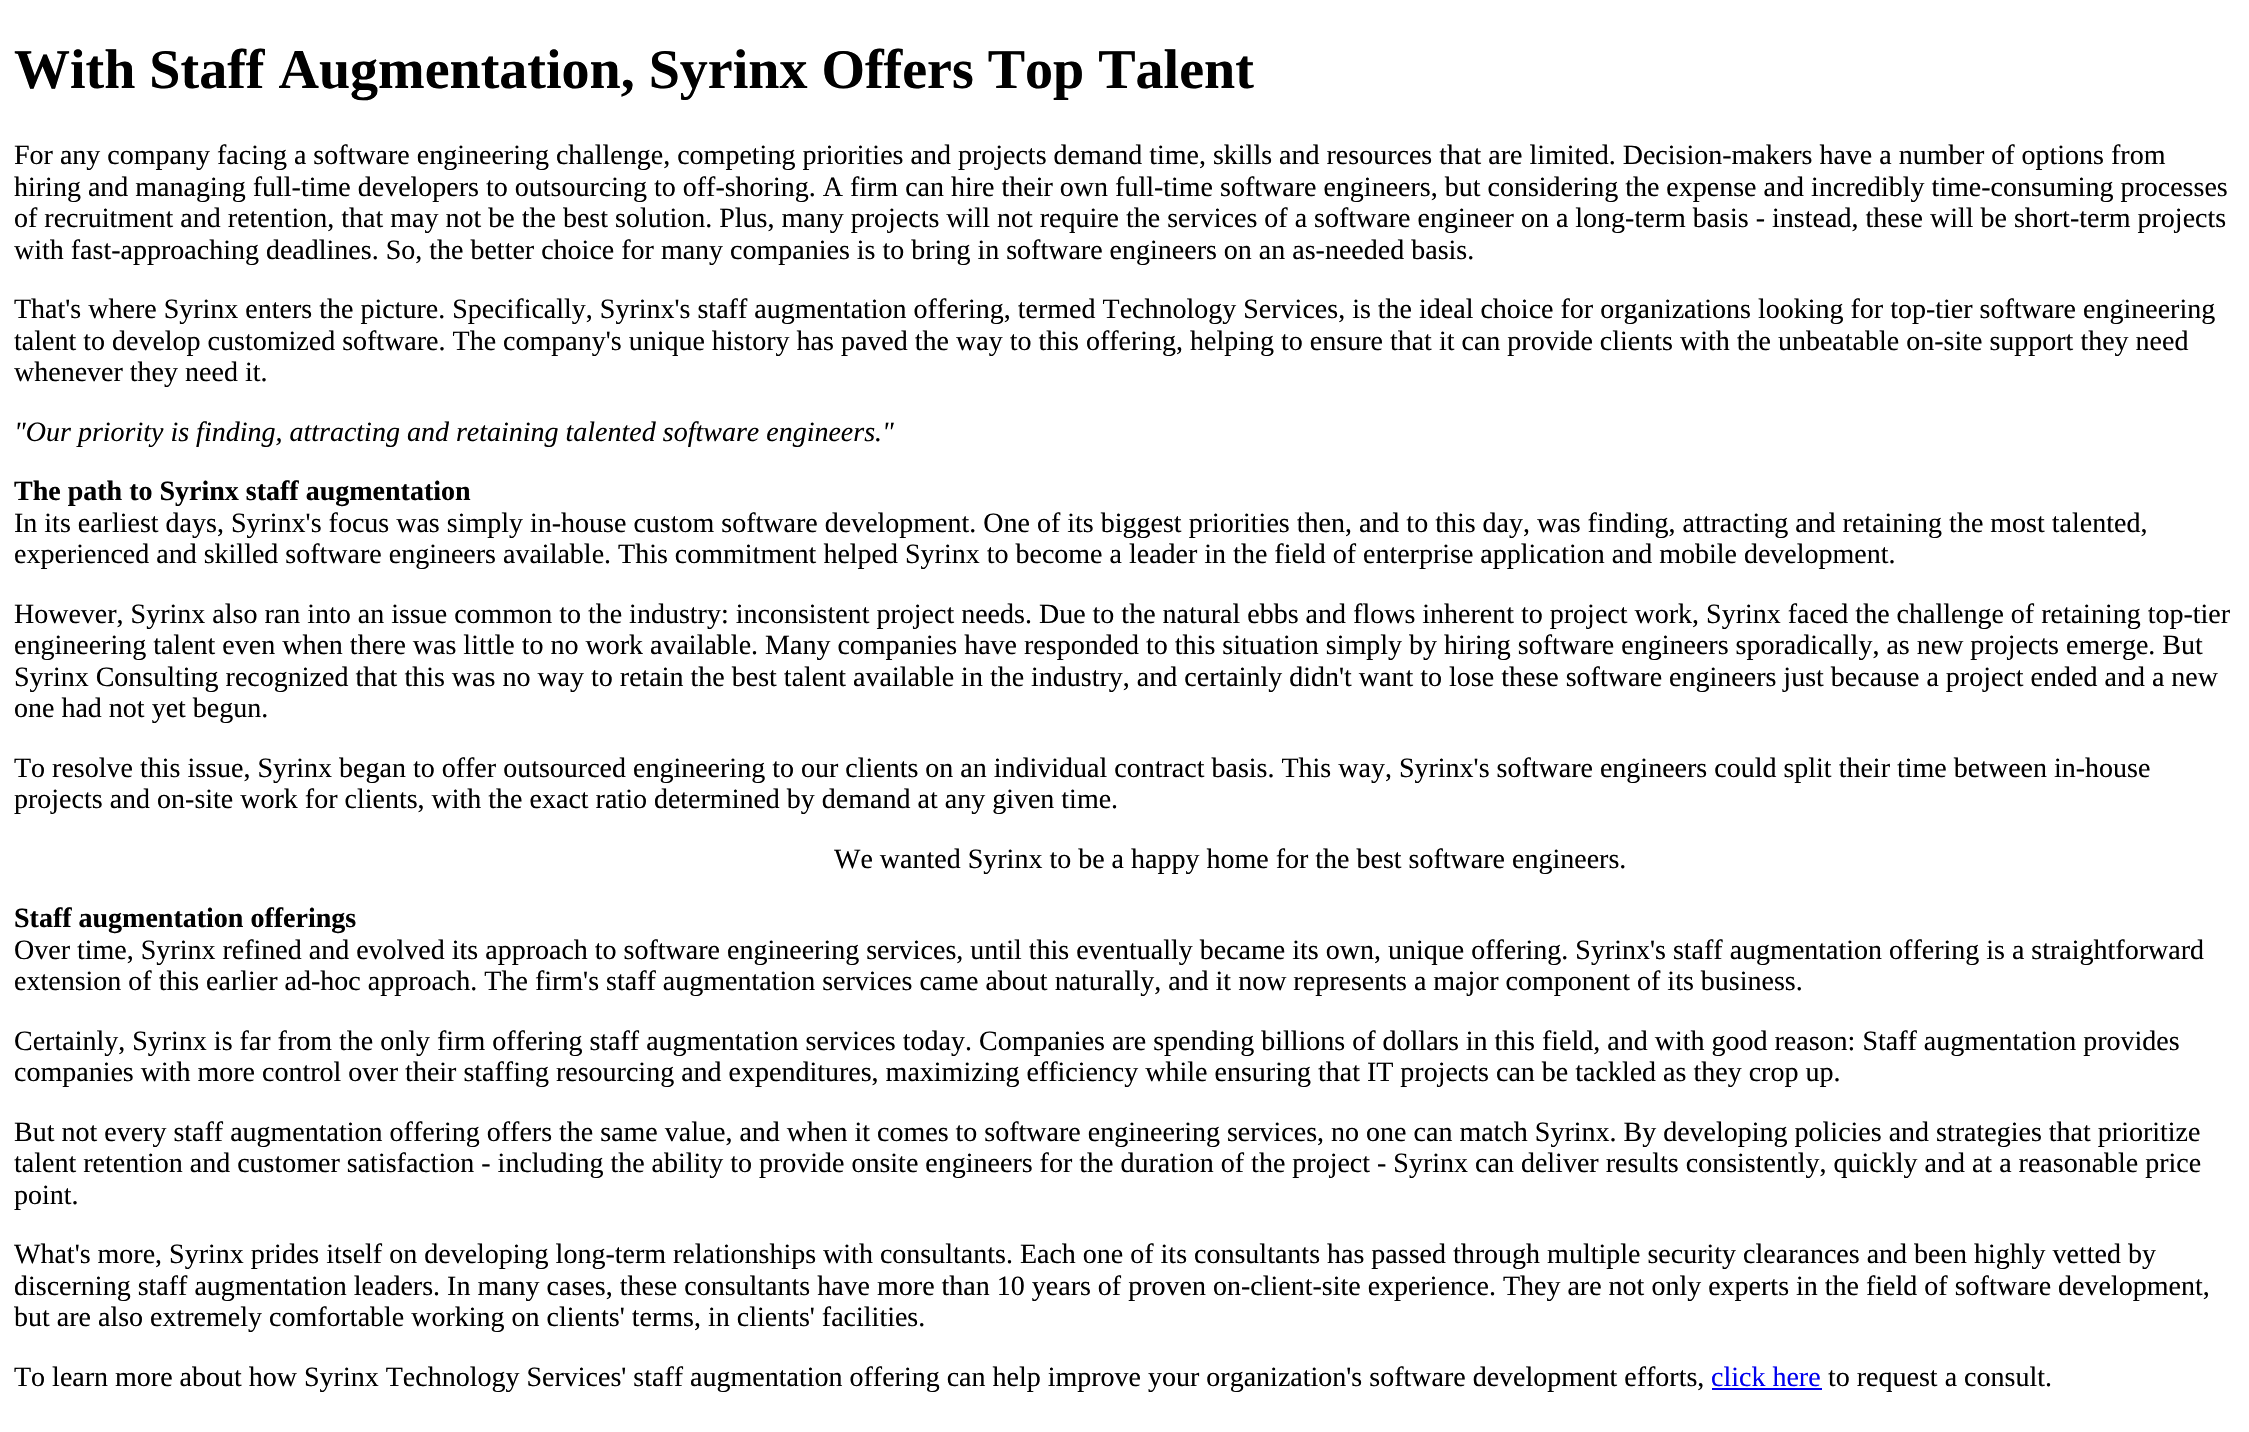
void draw(SkCanvas* canvas) {
	SkPaint paint;
	paint.setAntiAlias(true);
	canvas->clear(0xffffffff);
	SkFont f1(fontMgr->matchFamilyStyle("Liberation Serif", SkFontStyle::Bold()), 56);
	f1.setSubpixel(true);
	paint.setColor(0xff000000);
	canvas->drawString("With Staff Augmentation, Syrinx Offers Top Talent", 14, 88, f1, paint);
	SkFont f2(fontMgr->matchFamilyStyle("Liberation Serif", SkFontStyle::Normal()), 28);
	f2.setSubpixel(true);
	canvas->drawString("For any company facing a software engineering challenge, competing priorities and projects demand time, skills and resources that are limited. Decision-makers have a number of options from", 14, 164, f2, paint);
	canvas->drawString("hiring and managing full-time developers to outsourcing to off-shoring. A firm can hire their own full-time software engineers, but considering the expense and incredibly time-consuming processes", 14, 196, f2, paint);
	canvas->drawString("of recruitment and retention, that may not be the best solution. Plus, many projects will not require the services of a software engineer on a long-term basis - instead, these will be short-term projects", 14, 227, f2, paint);
	canvas->drawString("with fast-approaching deadlines. So, the better choice for many companies is to bring in software engineers on an as-needed basis.", 14, 259, f2, paint);
	canvas->drawString("That's where Syrinx enters the picture. Specifically, Syrinx's staff augmentation offering, termed Technology Services, is the ideal choice for organizations looking for top-tier software engineering", 14, 318, f2, paint);
	canvas->drawString("talent to develop customized software. The company's unique history has paved the way to this offering, helping to ensure that it can provide clients with the unbeatable on-site support they need", 14, 350, f2, paint);
	canvas->drawString("whenever they need it.", 14, 381, f2, paint);
	SkFont f3(fontMgr->matchFamilyStyle("Liberation Serif", SkFontStyle::Italic()), 28);
	f3.setSubpixel(true);
	canvas->drawString("\"Our priority is finding, attracting and retaining talented software engineers.\"", 14, 441, f3, paint);
	SkFont f4(fontMgr->matchFamilyStyle("Liberation Serif", SkFontStyle::Bold()), 28);
	f4.setSubpixel(true);
	canvas->drawString("The path to Syrinx staff augmentation", 14, 500, f4, paint);
	canvas->drawString("In its earliest days, Syrinx's focus was simply in-house custom software development. One of its biggest priorities then, and to this day, was finding, attracting and retaining the most talented,", 14, 532, f2, paint);
	canvas->drawString("experienced and skilled software engineers available. This commitment helped Syrinx to become a leader in the field of enterprise application and mobile development.", 14, 563, f2, paint);
	canvas->drawString("However, Syrinx also ran into an issue common to the industry: inconsistent project needs. Due to the natural ebbs and flows inherent to project work, Syrinx faced the challenge of retaining top-tier", 14, 623, f2, paint);
	canvas->drawString("engineering talent even when there was little to no work available. Many companies have responded to this situation simply by hiring software engineers sporadically, as new projects emerge. But", 14, 654, f2, paint);
	canvas->drawString("Syrinx Consulting recognized that this was no way to retain the best talent available in the industry, and certainly didn't want to lose these software engineers just because a project ended and a new", 14, 686, f2, paint);
	canvas->drawString("one had not yet begun.", 14, 717, f2, paint);
	canvas->drawString("To resolve this issue, Syrinx began to offer outsourced engineering to our clients on an individual contract basis. This way, Syrinx's software engineers could split their time between in-house", 14, 777, f2, paint);
	canvas->drawString("projects and on-site work for clients, with the exact ratio determined by demand at any given time.", 14, 808, f2, paint);
	canvas->drawString("We wanted Syrinx to be a happy home for the best software engineers.", 834, 868, f2, paint);
	canvas->drawString("Staff augmentation offerings", 14, 927, f4, paint);
	canvas->drawString("Over time, Syrinx refined and evolved its approach to software engineering services, until this eventually became its own, unique offering. Syrinx's staff augmentation offering is a straightforward", 14, 959, f2, paint);
	canvas->drawString("extension of this earlier ad-hoc approach. The firm's staff augmentation services came about naturally, and it now represents a major component of its business.", 14, 990, f2, paint);
	canvas->drawString("Certainly, Syrinx is far from the only firm offering staff augmentation services today. Companies are spending billions of dollars in this field, and with good reason: Staff augmentation provides", 14, 1050, f2, paint);
	canvas->drawString("companies with more control over their staffing resourcing and expenditures, maximizing efficiency while ensuring that IT projects can be tackled as they crop up.", 14, 1081, f2, paint);
	canvas->drawString("But not every staff augmentation offering offers the same value, and when it comes to software engineering services, no one can match Syrinx. By developing policies and strategies that prioritize", 14, 1141, f2, paint);
	canvas->drawString("talent retention and customer satisfaction - including the ability to provide onsite engineers for the duration of the project - Syrinx can deliver results consistently, quickly and at a reasonable price", 14, 1172, f2, paint);
	canvas->drawString("point.", 14, 1204, f2, paint);
	canvas->drawString("What's more, Syrinx prides itself on developing long-term relationships with consultants. Each one of its consultants has passed through multiple security clearances and been highly vetted by", 14, 1263, f2, paint);
	canvas->drawString("discerning staff augmentation leaders. In many cases, these consultants have more than 10 years of proven on-client-site experience. They are not only experts in the field of software development,", 14, 1295, f2, paint);
	canvas->drawString("but are also extremely comfortable working on clients' terms, in clients' facilities.", 14, 1326, f2, paint);
	canvas->drawString("To learn more about how Syrinx Technology Services' staff augmentation offering can help improve your organization's software development efforts,", 14, 1386, f2, paint);
	paint.setColor(0xff0000ee);
	canvas->drawString("click here", 1711, 1386, f2, paint);
	canvas->drawRect(SkRect::MakeXYWH(1712, 1388, 110, 2), paint);
	paint.setColor(0xff000000);
	canvas->drawString("to request a consult.", 1828, 1386, f2, paint);
}
